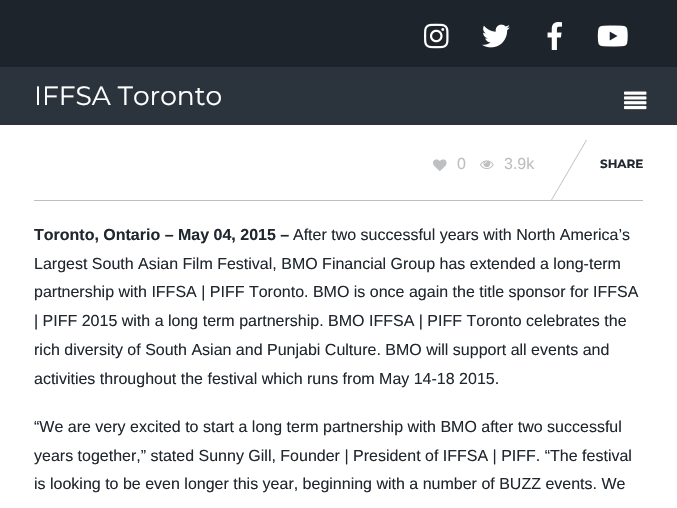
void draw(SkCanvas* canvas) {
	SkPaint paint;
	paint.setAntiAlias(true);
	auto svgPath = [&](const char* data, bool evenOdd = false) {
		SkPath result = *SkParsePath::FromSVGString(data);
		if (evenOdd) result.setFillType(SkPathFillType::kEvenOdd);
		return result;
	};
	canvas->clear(0xffffffff);
	paint.setColor(0xff2b333d);
	canvas->drawRect(SkRect::MakeXYWH(0, 67, 677, 58), paint);
	paint.setColor(0xff1e242b);
	canvas->drawRect(SkRect::MakeXYWH(0, 0, 677, 67), paint);
	canvas->drawImageRect(SkImages::DeferredFromEncodedData(SkData::MakeFromFileName("img1.png")), SkRect::MakeXYWH(424, 23, 25, 26), SkSamplingOptions());
	canvas->drawImageRect(SkImages::DeferredFromEncodedData(SkData::MakeFromFileName("img2.png")), SkRect::MakeXYWH(482, 24, 28, 24), SkSamplingOptions());
	canvas->drawImageRect(SkImages::DeferredFromEncodedData(SkData::MakeFromFileName("img3.png")), SkRect::MakeXYWH(547, 22, 15, 28), SkSamplingOptions());
	canvas->drawImageRect(SkImages::DeferredFromEncodedData(SkData::MakeFromFileName("img4.png")), SkRect::MakeXYWH(597, 25, 31, 22), SkSamplingOptions());
	SkFont f1(fontMgr->matchFamilyStyle("Montserrat", SkFontStyle::Normal()), 26.5);
	f1.setSubpixel(true);
	paint.setColor(0xffffffff);
	canvas->drawString("IFFSA Toronto", 34, 105, f1, paint);
	canvas->drawImageRect(SkImages::DeferredFromEncodedData(SkData::MakeFromFileName("img5.png")), SkRect::MakeXYWH(624, 91, 23, 19), SkSamplingOptions());
	paint.setColor(0xffbfbfbf);
	canvas->drawRect(SkRect::MakeXYWH(34, 200, 609, 1), paint);
	canvas->drawImageRect(SkImages::DeferredFromEncodedData(SkData::MakeFromFileName("img6.png")), SkRect::MakeXYWH(433, 159, 14, 12), SkSamplingOptions());
	SkFont f2(fontMgr->matchFamilyStyle("Liberation Sans", SkFontStyle::Normal()), 16);
	f2.setSubpixel(true);
	paint.setColor(0xffbcbec1);
	canvas->drawString("0", 457, 169, f2, paint);
	canvas->drawImageRect(SkImages::DeferredFromEncodedData(SkData::MakeFromFileName("img7.png")), SkRect::MakeXYWH(480, 160, 14, 9), SkSamplingOptions());
	canvas->drawString("3.9k", 504, 169, f2, paint);
	paint.setColor(0xffbfbfbf);
	canvas->drawPath(svgPath("M586 140H587L552 200H551Z"), paint);
	SkFont f3(fontMgr->matchFamilyStyle("Montserrat", SkFontStyle::Bold()), 12);
	f3.setSubpixel(true);
	paint.setColor(0xff20272f);
	canvas->drawString("SHARE", 600, 168, f3, paint);
	SkFont f4(fontMgr->matchFamilyStyle("Liberation Sans", SkFontStyle::Bold()), 16);
	f4.setSubpixel(true);
	canvas->drawString("Toronto, Ontario – May 04, 2015 –", 34, 240, f4, paint);
	canvas->drawString("After two successful years with North America’s", 293, 240, f2, paint);
	canvas->drawString("Largest South Asian Film Festival, BMO Financial Group has extended a long-term", 34, 269, f2, paint);
	canvas->drawString("partnership with IFFSA | PIFF Toronto. BMO is once again the title sponsor for IFFSA", 34, 297, f2, paint);
	canvas->drawString("| PIFF 2015 with a long term partnership. BMO IFFSA | PIFF Toronto celebrates the", 34, 326, f2, paint);
	canvas->drawString("rich diversity of South Asian and Punjabi Culture. BMO will support all events and", 34, 355, f2, paint);
	canvas->drawString("activities throughout the festival which runs from May 14-18 2015.", 34, 384, f2, paint);
	canvas->drawString("“We are very excited to start a long term partnership with BMO after two successful", 34, 432, f2, paint);
	canvas->drawString("years together,” stated Sunny Gill, Founder | President of IFFSA | PIFF. “The festival", 34, 461, f2, paint);
	canvas->drawString("is looking to be even longer this year, beginning with a number of BUZZ events. We", 34, 489, f2, paint);
}
